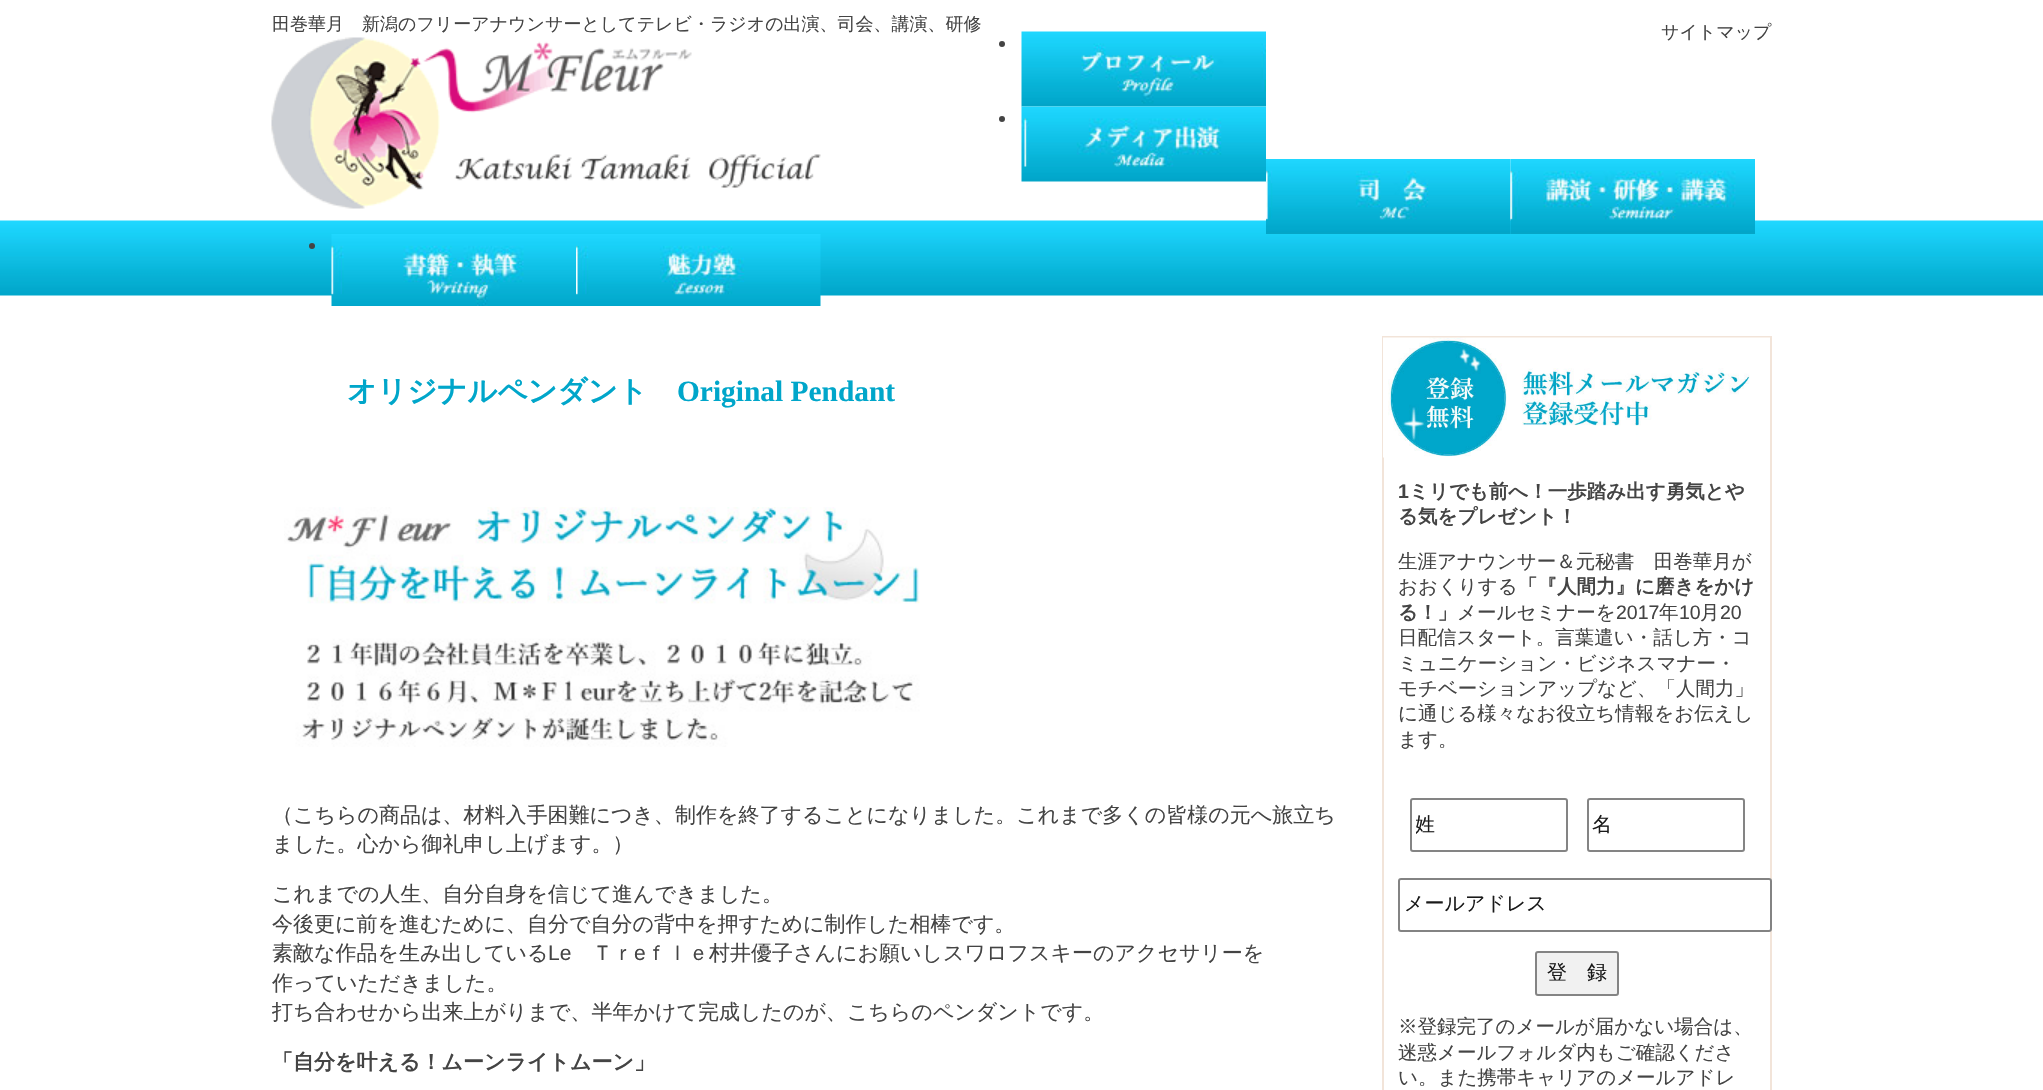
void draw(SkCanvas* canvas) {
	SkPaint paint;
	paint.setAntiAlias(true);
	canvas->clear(0xffffffff);
	canvas->drawImageRect(SkImages::DeferredFromEncodedData(SkData::MakeFromFileName("img1.png")), SkRect::MakeXYWH(0, 220, 2043, 76), SkSamplingOptions());
	SkFont f1(fontMgr->matchFamilyStyle("WenQuanYi Zen Hei", SkFontStyle(500, SkFontStyle::kNormal_Width, SkFontStyle::kUpright_Slant)), 18);
	f1.setSubpixel(true);
	paint.setColor(0xff444444);
	canvas->drawString("田巻華月　新潟のフリーアナウンサーとしてテレビ・ラジオの出演、司会、講演、研修", 272, 30, f1, paint);
	canvas->drawImageRect(SkImages::DeferredFromEncodedData(SkData::MakeFromFileName("img2.png")), SkRect::MakeXYWH(271, 37, 550, 172), SkSamplingOptions());
	canvas->drawString("サイトマップ", 1661, 38, f1, paint);
	canvas->drawCircle(1002, 44, 3, paint);
	canvas->drawImageRect(SkImages::DeferredFromEncodedData(SkData::MakeFromFileName("img3.png")), SkRect::MakeXYWH(1021, 31, 245, 76), SkSamplingOptions());
	canvas->drawCircle(1002, 119, 3, paint);
	canvas->drawImageRect(SkImages::DeferredFromEncodedData(SkData::MakeFromFileName("img4.png")), SkRect::MakeXYWH(1021, 106, 245, 76), SkSamplingOptions());
	canvas->drawImageRect(SkImages::DeferredFromEncodedData(SkData::MakeFromFileName("img5.png")), SkRect::MakeXYWH(1266, 159, 245, 75), SkSamplingOptions());
	canvas->drawImageRect(SkImages::DeferredFromEncodedData(SkData::MakeFromFileName("img6.png")), SkRect::MakeXYWH(1510, 159, 245, 75), SkSamplingOptions());
	canvas->drawCircle(312, 246, 3, paint);
	canvas->drawImageRect(SkImages::DeferredFromEncodedData(SkData::MakeFromFileName("img7.png")), SkRect::MakeXYWH(331, 234, 245, 72), SkSamplingOptions());
	canvas->drawImageRect(SkImages::DeferredFromEncodedData(SkData::MakeFromFileName("img8.png")), SkRect::MakeXYWH(576, 234, 245, 72), SkSamplingOptions());
	SkFont f2(fontMgr->matchFamilyStyle("WenQuanYi Zen Hei", SkFontStyle::Bold()), 29.4);
	f2.setSubpixel(true);
	paint.setColor(0xff00a6ca);
	canvas->drawString("オリジナルペンダント", 347, 401, f2, paint);
	SkFont f3(fontMgr->matchFamilyStyle("Liberation Serif", SkFontStyle::Bold()), 29.4);
	f3.setSubpixel(true);
	canvas->drawString("Original Pendant", 677, 401, f3, paint);
	canvas->drawImageRect(SkImages::DeferredFromEncodedData(SkData::MakeFromFileName("img9.png")), SkRect::MakeXYWH(284, 507, 636, 240), SkSamplingOptions());
	SkFont f4(fontMgr->matchFamilyStyle("WenQuanYi Zen Hei", SkFontStyle(500, SkFontStyle::kNormal_Width, SkFontStyle::kUpright_Slant)), 21);
	f4.setSubpixel(true);
	paint.setColor(0xff444444);
	canvas->drawString("（こちらの商品は、材料入手困難につき、制作を終了することになりました。これまで多くの皆様の元へ旅立ち", 272, 822, f4, paint);
	canvas->drawString("ました。心から御礼申し上げます。）", 272, 851, f4, paint);
	canvas->drawString("これまでの人生、自分自身を信じて進んできました。", 272, 901, f4, paint);
	canvas->drawString("今後更に前を進むために、自分で自分の背中を押すために制作した相棒です。", 272, 931, f4, paint);
	canvas->drawString("素敵な作品を生み出している", 272, 960, f4, paint);
	SkFont f5(fontMgr->matchFamilyStyle("Liberation Sans", SkFontStyle::Normal()), 21);
	f5.setSubpixel(true);
	canvas->drawString("Le", 548, 960, f5, paint);
	canvas->drawString("Ｔｒ", 592, 960, f4, paint);
	canvas->drawString("e", 634, 960, f5, paint);
	canvas->drawString("ｆｌｅ村井優子さんにお願いしスワロフスキーのアクセサリーを", 646, 960, f4, paint);
	canvas->drawString("作っていただきました。", 272, 990, f4, paint);
	canvas->drawString("打ち合わせから出来上がりまで、半年かけて完成したのが、こちらのペンダントです。", 272, 1019, f4, paint);
	SkFont f6(fontMgr->matchFamilyStyle("WenQuanYi Zen Hei", SkFontStyle::Bold()), 21);
	f6.setSubpixel(true);
	canvas->drawString("「自分を叶える！ムーンライトムーン」", 272, 1069, f6, paint);
	paint.setStroke(true);
	paint.setStrokeWidth(2);
	paint.setColor(0xfff2e4d9);
	canvas->drawRect(SkRect::MakeXYWH(1383, 337, 388, 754), paint);
	canvas->drawImageRect(SkImages::DeferredFromEncodedData(SkData::MakeFromFileName("img10.png")), SkRect::MakeXYWH(1383, 337, 387, 121), SkSamplingOptions());
	SkFont f7(fontMgr->matchFamilyStyle("Liberation Sans", SkFontStyle::Bold()), 19.5);
	f7.setSubpixel(true);
	paint.setStroke(false);
	paint.setColor(0xff444444);
	canvas->drawString("1", 1398, 498, f7, paint);
	SkFont f8(fontMgr->matchFamilyStyle("WenQuanYi Zen Hei", SkFontStyle::Bold()), 19.5);
	f8.setSubpixel(true);
	canvas->drawString("ミリでも前へ！一歩踏み出す勇気とや", 1409, 498, f8, paint);
	canvas->drawString("る気をプレゼント！", 1398, 523, f8, paint);
	SkFont f9(fontMgr->matchFamilyStyle("WenQuanYi Zen Hei", SkFontStyle(500, SkFontStyle::kNormal_Width, SkFontStyle::kUpright_Slant)), 19.5);
	f9.setSubpixel(true);
	canvas->drawString("生涯アナウンサー＆元秘書　田巻華月が", 1398, 568, f9, paint);
	canvas->drawString("おおくりする", 1398, 593, f9, paint);
	canvas->drawString("「『人間力』に磨きをかけ", 1518, 593, f8, paint);
	canvas->drawString("る！」", 1398, 619, f8, paint);
	canvas->drawString("メールセミナーを", 1457, 619, f9, paint);
	SkFont f10(fontMgr->matchFamilyStyle("Liberation Sans", SkFontStyle::Normal()), 19.5);
	f10.setSubpixel(true);
	canvas->drawString("2017", 1616, 619, f10, paint);
	canvas->drawString("年", 1659, 619, f9, paint);
	canvas->drawString("10", 1679, 619, f10, paint);
	canvas->drawString("月", 1700, 619, f9, paint);
	canvas->drawString("20", 1720, 619, f10, paint);
	canvas->drawString("日配信スタート。言葉遣い・話し方・コ", 1398, 644, f9, paint);
	canvas->drawString("ミュニケーション・ビジネスマナー・", 1398, 670, f9, paint);
	canvas->drawString("モチベーションアップなど、「人間力」", 1398, 695, f9, paint);
	canvas->drawString("に通じる様々なお役立ち情報をお伝えし", 1398, 720, f9, paint);
	canvas->drawString("ます。", 1398, 746, f9, paint);
	paint.setStroke(true);
	paint.setColor(0xff848484);
	canvas->drawRoundRect(SkRect::MakeXYWH(1411, 799, 156, 52), 2, 2, paint);
	canvas->save();
	canvas->clipRect(SkRect::MakeXYWH(1416, 812, 146, 27));
	SkFont f11(fontMgr->matchFamilyStyle("WenQuanYi Zen Hei", SkFontStyle(500, SkFontStyle::kNormal_Width, SkFontStyle::kUpright_Slant)), 20);
	f11.setSubpixel(true);
	paint.setStroke(false);
	paint.setColor(0xff1a1a1a);
	canvas->drawString("姓", 1415, 831, f11, paint);
	canvas->restore();
	paint.setStroke(true);
	paint.setColor(0xff848484);
	canvas->drawRoundRect(SkRect::MakeXYWH(1588, 799, 156, 52), 2, 2, paint);
	paint.setStroke(false);
	paint.setColor(0xff1a1a1a);
	canvas->drawString("名", 1592, 831, f11, paint);
	paint.setColor(0xe6ffffff);
	canvas->drawRoundRect(SkRect::MakeXYWH(1398, 878, 374, 54), 3, 3, paint);
	paint.setStroke(true);
	paint.setColor(0xe6767676);
	canvas->drawRoundRect(SkRect::MakeXYWH(1399, 879, 372, 52), 2, 2, paint);
	paint.setStroke(false);
	paint.setColor(0xff1a1a1a);
	canvas->drawString("メールアドレス", 1404, 910, f11, paint);
	paint.setColor(0xfff1f1f1);
	canvas->drawRoundRect(SkRect::MakeXYWH(1536, 952, 82, 43), 2, 2, paint);
	paint.setStroke(true);
	paint.setColor(0xff848484);
	canvas->drawRoundRect(SkRect::MakeXYWH(1536, 952, 82, 43), 2, 2, paint);
	paint.setStroke(false);
	paint.setColor(0xff1a1a1a);
	canvas->drawString("登　録", 1547, 979, f11, paint);
	paint.setColor(0xff444444);
	canvas->drawString("※登録完了のメールが届かない場合は、", 1398, 1033, f9, paint);
	canvas->drawString("迷惑メールフォルダ内もご確認くださ", 1398, 1059, f9, paint);
	canvas->drawString("い。また携帯キャリアのメールアドレ", 1398, 1084, f9, paint);
}
